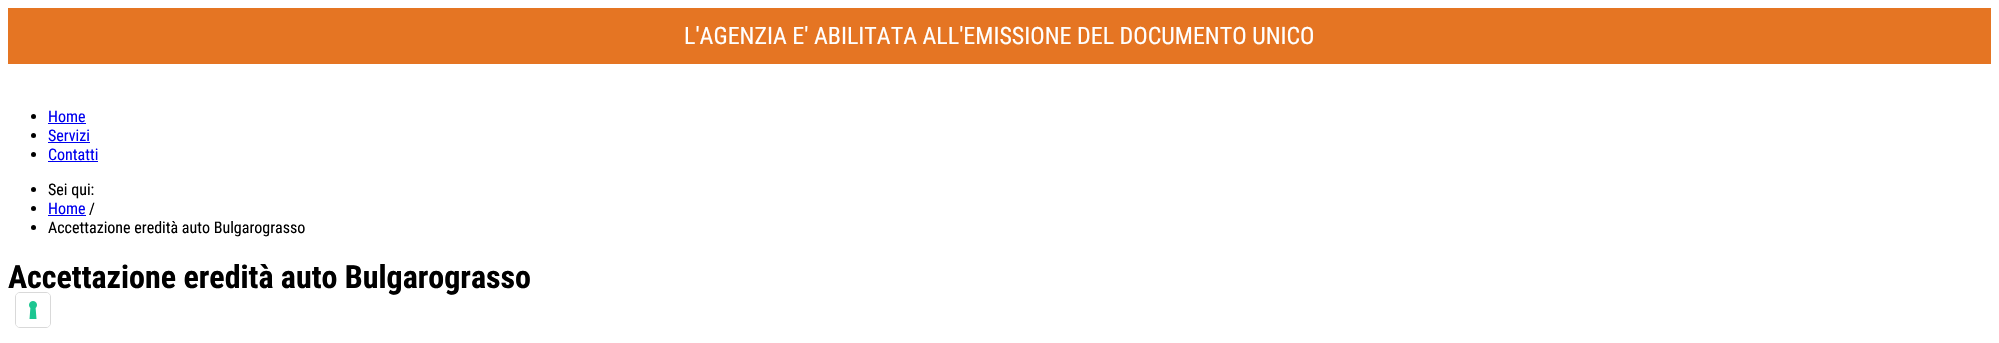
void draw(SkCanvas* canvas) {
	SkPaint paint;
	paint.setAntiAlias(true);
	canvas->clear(0xffffffff);
	paint.setColor(0xffe57523);
	canvas->drawRect(SkRect::MakeXYWH(8, 8, 1983, 56), paint);
	SkFont f1(fontMgr->matchFamilyStyle("Roboto Condensed", SkFontStyle::Normal()), 24);
	f1.setSubpixel(true);
	paint.setColor(0xffffffff);
	canvas->drawString("L'AGENZIA E' ABILITATA ALL'EMISSIONE DEL DOCUMENTO UNICO", 684, 44, f1, paint);
	paint.setColor(0xff000000);
	canvas->drawCircle(33.5, 116.5, 2.5, paint);
	SkFont f2(fontMgr->matchFamilyStyle("Roboto Condensed", SkFontStyle::Normal()), 16);
	f2.setSubpixel(true);
	paint.setColor(0xff0000ee);
	canvas->drawString("Home", 48, 122, f2, paint);
	canvas->drawRect(SkRect::MakeXYWH(48, 123, 38, 1), paint);
	paint.setColor(0xff000000);
	canvas->drawCircle(33.5, 135.5, 2.5, paint);
	paint.setColor(0xff0000ee);
	canvas->drawString("Servizi", 48, 141, f2, paint);
	canvas->drawRect(SkRect::MakeXYWH(48, 142, 42, 1), paint);
	paint.setColor(0xff000000);
	canvas->drawCircle(33.5, 154.5, 2.5, paint);
	paint.setColor(0xff0000ee);
	canvas->drawString("Contatti", 48, 160, f2, paint);
	canvas->drawRect(SkRect::MakeXYWH(48, 161, 50, 1), paint);
	paint.setColor(0xff000000);
	canvas->drawCircle(33.5, 189.5, 2.5, paint);
	canvas->drawString("Sei qui:", 48, 195, f2, paint);
	canvas->drawCircle(33.5, 208.5, 2.5, paint);
	paint.setColor(0xff0000ee);
	canvas->drawString("Home", 48, 214, f2, paint);
	canvas->drawRect(SkRect::MakeXYWH(48, 215, 38, 1), paint);
	paint.setColor(0xff000000);
	canvas->drawString("/", 89, 214, f2, paint);
	canvas->drawCircle(33.5, 227.5, 2.5, paint);
	canvas->drawString("Accettazione eredità auto Bulgarograsso", 48, 233, f2, paint);
	SkFont f3(fontMgr->matchFamilyStyle("Roboto Condensed", SkFontStyle::Bold()), 32);
	f3.setSubpixel(true);
	canvas->drawString("Accettazione eredità auto Bulgarograsso", 8, 288, f3, paint);
	paint.setStroke(true);
	paint.setStrokeWidth(1);
	paint.setColor(0xffd9d9d9);
	canvas->drawRoundRect(SkRect::MakeXYWH(15.5, 292.5, 35, 35), 4.5, 4.5, paint);
	paint.setStroke(false);
	paint.setColor(0xffffffff);
	canvas->drawRoundRect(SkRect::MakeXYWH(16, 293, 34, 34), 4, 4, paint);
	canvas->drawImageRect(SkImages::DeferredFromEncodedData(SkData::MakeFromFileName("img1.png")), SkRect::MakeXYWH(29, 301, 8, 18), SkSamplingOptions());
}
